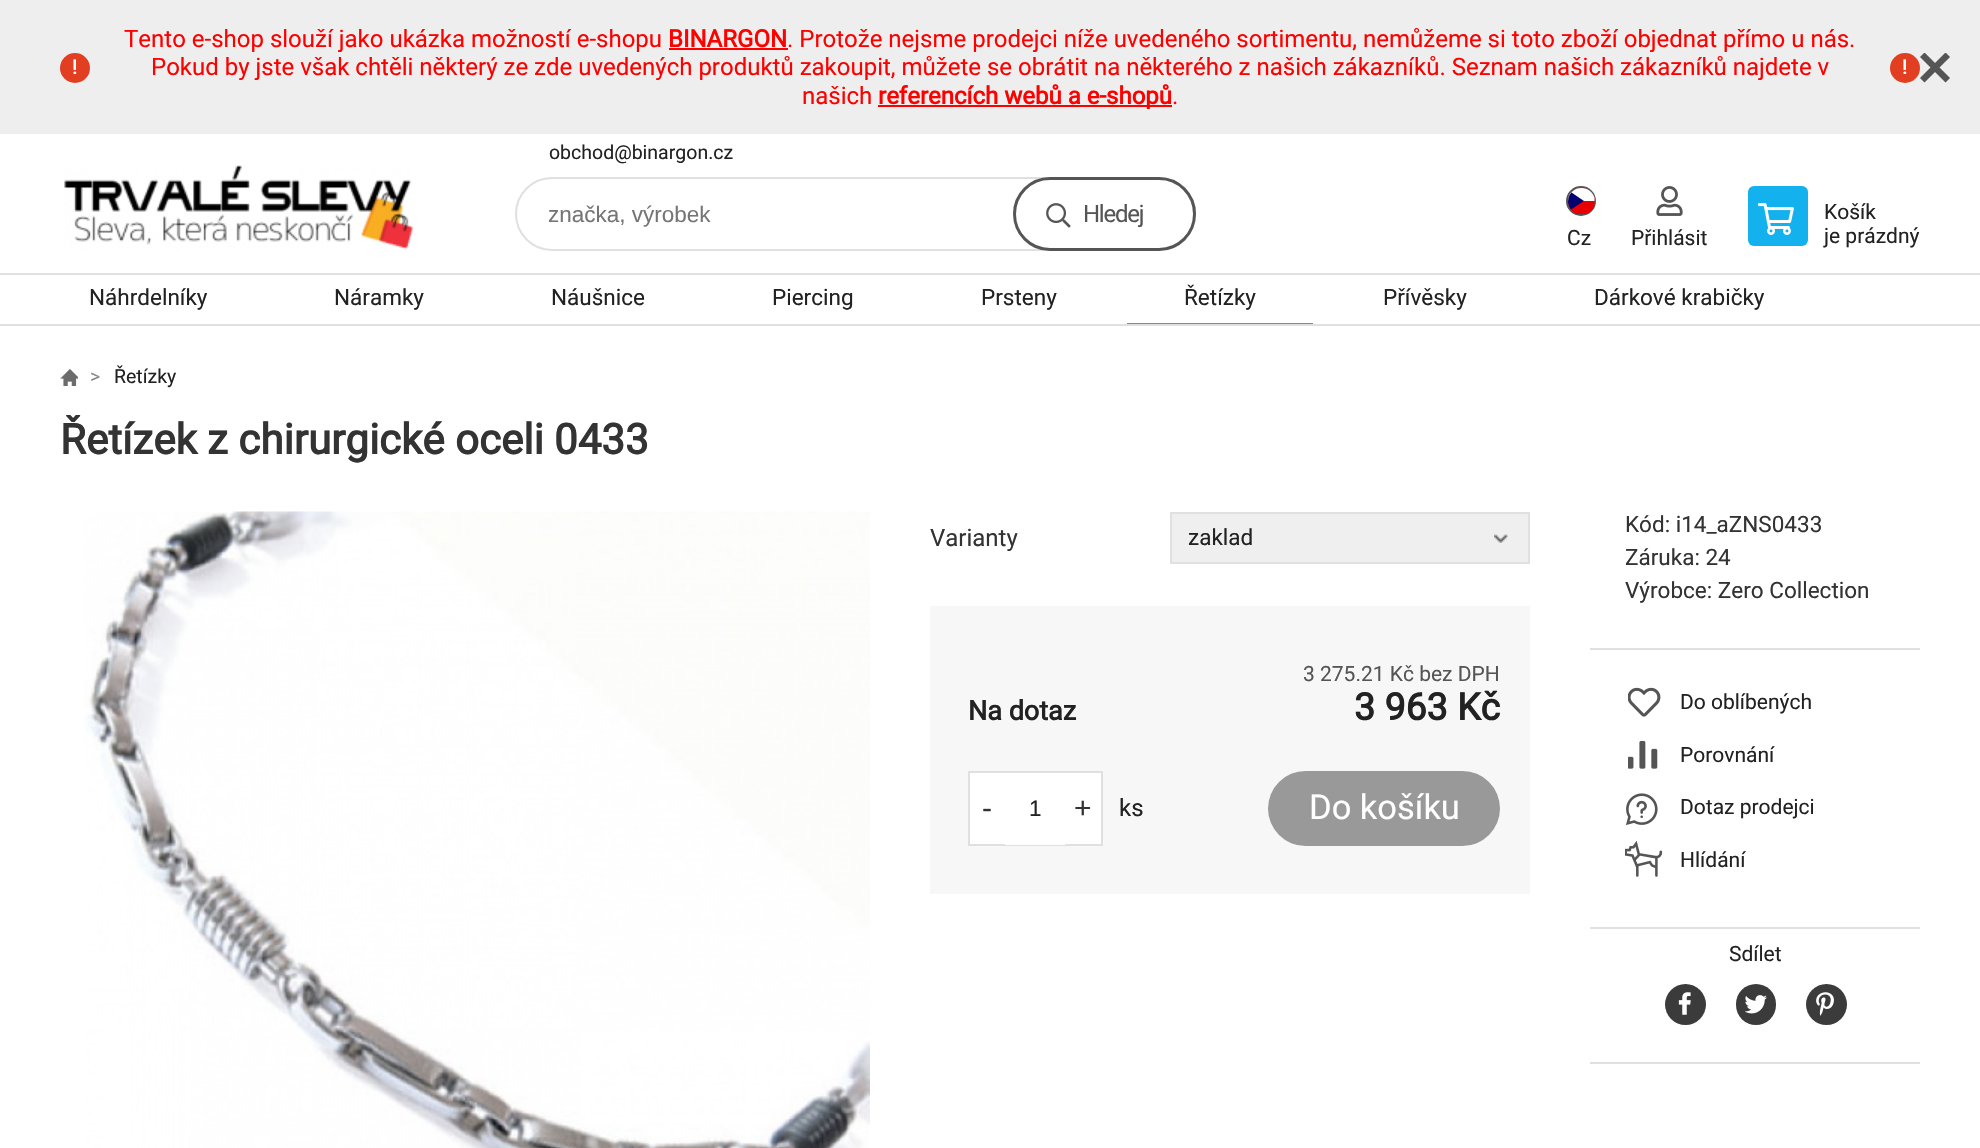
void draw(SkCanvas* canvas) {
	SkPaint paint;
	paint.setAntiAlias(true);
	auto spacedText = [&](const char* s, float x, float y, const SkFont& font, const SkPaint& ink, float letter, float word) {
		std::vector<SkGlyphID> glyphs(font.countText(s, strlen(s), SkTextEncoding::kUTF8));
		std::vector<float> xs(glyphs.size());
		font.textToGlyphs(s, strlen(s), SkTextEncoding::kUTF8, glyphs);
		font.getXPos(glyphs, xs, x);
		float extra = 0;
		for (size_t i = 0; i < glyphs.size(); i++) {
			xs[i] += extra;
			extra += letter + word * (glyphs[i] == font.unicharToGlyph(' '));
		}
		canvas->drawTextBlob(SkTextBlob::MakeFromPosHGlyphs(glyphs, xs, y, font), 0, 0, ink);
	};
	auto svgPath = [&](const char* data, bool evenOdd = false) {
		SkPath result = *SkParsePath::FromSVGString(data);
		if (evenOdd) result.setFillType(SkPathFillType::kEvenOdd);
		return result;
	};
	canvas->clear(0xffffffff);
	paint.setColor(0xffeeeeee);
	canvas->drawRect(SkRect::MakeXYWH(0, 0, 1980, 134), paint);
	paint.setColor(0xffe23e21);
	canvas->drawCircle(75, 68, 15, paint);
	SkFont f1(fontMgr->matchFamilyStyle("Roboto", SkFontStyle::Bold()), 19.5);
	f1.setSubpixel(true);
	paint.setColor(0xffffffff);
	canvas->drawString("!", 72, 74, f1, paint);
	SkFont f2(fontMgr->matchFamilyStyle("Roboto", SkFontStyle::Normal()), 24);
	f2.setSubpixel(true);
	paint.setColor(0xffff0000);
	canvas->drawString("Tento e-shop slouží jako ukázka možností e-shopu", 124, 47, f2, paint);
	SkFont f3(fontMgr->matchFamilyStyle("Roboto", SkFontStyle::Bold()), 24);
	f3.setSubpixel(true);
	canvas->drawString("BINARGON", 668, 47, f3, paint);
	canvas->drawString(". Protože nejsme prodejci níže uvedeného sortimentu, nemůžeme si toto zboží objednat přímo u nás.", 787, 47, f2, paint);
	canvas->drawRect(SkRect::MakeXYWH(669, 48, 119, 2), paint);
	canvas->drawString("Pokud by jste však chtěli některý ze zde uvedených produktů zakoupit, můžete se obrátit na některého z našich zákazníků. Seznam našich zákazníků najdete v", 151, 75, f2, paint);
	canvas->drawString("našich", 802, 104, f2, paint);
	canvas->drawRect(SkRect::MakeXYWH(878, 105, 294, 2), paint);
	canvas->drawString("referencích webů a e-shopů", 878, 104, f3, paint);
	canvas->drawString(".", 1172, 104, f2, paint);
	paint.setColor(0xffe23e21);
	canvas->drawCircle(1905, 68, 15, paint);
	paint.setColor(0xffffffff);
	canvas->drawString("!", 1902, 74, f1, paint);
	canvas->drawImageRect(SkImages::DeferredFromEncodedData(SkData::MakeFromFileName("img1.png")), SkRect::MakeXYWH(1920, 53, 30, 30), SkSamplingOptions());
	SkFont f4(fontMgr->matchFamilyStyle("Roboto", SkFontStyle::Normal()), 19.5);
	f4.setSubpixel(true);
	paint.setColor(0xff222222);
	canvas->drawString("obchod@binargon.cz", 549, 159, f4, paint);
	canvas->drawImageRect(SkImages::DeferredFromEncodedData(SkData::MakeFromFileName("img2.png")), SkRect::MakeXYWH(64, 165, 349, 85), SkSamplingOptions());
	paint.setStroke(true);
	paint.setStrokeWidth(2);
	paint.setColor(0xffe0e0e0);
	canvas->drawRoundRect(SkRect::MakeXYWH(516, 178, 679, 72), 36, 36, paint);
	SkFont f5(fontMgr->matchFamilyStyle("Liberation Sans", SkFontStyle::Normal()), 22.5);
	f5.setSubpixel(true);
	paint.setStroke(false);
	paint.setColor(0xff757575);
	canvas->drawString("značka, výrobek", 548, 222, f5, paint);
	canvas->drawImageRect(SkImages::DeferredFromEncodedData(SkData::MakeFromFileName("img3.png")), SkRect::MakeXYWH(1046, 203, 25, 25), SkSamplingOptions());
	paint.setStroke(true);
	paint.setStrokeWidth(3);
	paint.setColor(0xff555555);
	canvas->drawRoundRect(SkRect::MakeXYWH(1014.5, 178.5, 180, 71), 35.5, 35.5, paint);
	paint.setStroke(false);
	spacedText("Hledej", 1083, 222, f2, paint, -1.25, 0);
	paint.setColor(0xff14b1ef);
	canvas->drawRoundRect(SkRect::MakeXYWH(1748, 186, 60, 60), 6, 6, paint);
	canvas->drawImageRect(SkImages::DeferredFromEncodedData(SkData::MakeFromFileName("img4.png")), SkRect::MakeXYWH(1758, 203, 36, 32), SkSamplingOptions());
	SkFont f6(fontMgr->matchFamilyStyle("Roboto", SkFontStyle::Normal()), 21);
	f6.setSubpixel(true);
	paint.setColor(0xff222222);
	canvas->drawString("Košík", 1824, 219, f6, paint);
	canvas->drawString("je prázdný", 1824, 243, f6, paint);
	paint.setStroke(true);
	paint.setStrokeWidth(2);
	paint.setColor(0xff555555);
	canvas->drawCircle(1581, 201, 14, paint);
	paint.setStroke(false);
	paint.setColor(0xffe80000);
	canvas->drawPath(svgPath("M1581.5 188C1587.5 188 1593 192 1594.5 198V205C1593.5 209 1590.5 212.5 1586.5 214H1576.5C1571.5 212 1568 207 1568 201.5C1568 194 1574 188 1581.5 188Z"), paint);
	paint.setColor(0xffffffff);
	canvas->drawPath(svgPath("M1581.5 188C1587.5 188 1593 192 1594.5 198V201H1568C1568.5 194 1574 188 1581.5 188Z"), paint);
	paint.setColor(0xff00006f);
	canvas->drawPath(svgPath("M1571.5 192.5C1567 197.5 1567 204.5 1571 209.5L1584 201Z"), paint);
	paint.setColor(0xff222222);
	canvas->drawString("Cz", 1567, 245, f6, paint);
	canvas->drawImageRect(SkImages::DeferredFromEncodedData(SkData::MakeFromFileName("img5.png")), SkRect::MakeXYWH(1656, 186, 27, 30), SkSamplingOptions());
	canvas->drawString("Přihlásit", 1631, 245, f6, paint);
	paint.setColor(0xffe0e0e0);
	canvas->drawRect(SkRect::MakeXYWH(0, 273, 1980, 2), paint);
	canvas->drawRect(SkRect::MakeXYWH(0, 324, 1980, 2), paint);
	SkFont f7(fontMgr->matchFamilyStyle("Roboto", SkFontStyle::Normal()), 22.5);
	f7.setSubpixel(true);
	paint.setColor(0xff222222);
	canvas->drawString("Náhrdelníky", 89, 305, f7, paint);
	canvas->drawString("Náramky", 334, 305, f7, paint);
	canvas->drawString("Náušnice", 551, 305, f7, paint);
	canvas->drawString("Piercing", 772, 305, f7, paint);
	canvas->drawString("Prsteny", 981, 305, f7, paint);
	canvas->drawString("Řetízky", 1184, 305, f7, paint);
	paint.setColor(0xff9e79a7);
	canvas->drawRect(SkRect::MakeXYWH(1127, 323, 186, 1), paint);
	paint.setColor(0xff222222);
	canvas->drawString("Přívěsky", 1383, 305, f7, paint);
	canvas->drawString("Dárkové krabičky", 1594, 305, f7, paint);
	canvas->drawImageRect(SkImages::DeferredFromEncodedData(SkData::MakeFromFileName("img6.png")), SkRect::MakeXYWH(60, 369, 18, 17), SkSamplingOptions());
	paint.setColor(0xff888888);
	canvas->drawString(">", 90, 383, f4, paint);
	paint.setColor(0xff222222);
	canvas->drawString("Řetízky", 114, 383, f4, paint);
	SkFont f8(fontMgr->matchFamilyStyle("Roboto", SkFontStyle::Bold()), 42);
	f8.setSubpixel(true);
	paint.setColor(0xff333333);
	canvas->drawString("Řetízek z chirurgické oceli 0433", 60, 454, f8, paint);
	canvas->drawImageRect(SkImages::DeferredFromEncodedData(SkData::MakeFromFileName("img7.png")), SkRect::MakeXYWH(84, 511, 786, 637), SkSamplingOptions());
	canvas->drawString("Varianty", 930, 546, f2, paint);
	paint.setColor(0xffefefef);
	canvas->drawRect(SkRect::MakeXYWH(1172, 514, 356, 48), paint);
	canvas->drawImageRect(SkImages::DeferredFromEncodedData(SkData::MakeFromFileName("img8.png")), SkRect::MakeXYWH(1494, 534, 14, 9), SkSamplingOptions());
	paint.setStroke(true);
	paint.setColor(0xffe0e0e0);
	canvas->drawRect(SkRect::MakeXYWH(1171, 513, 358, 50), paint);
	paint.setStroke(false);
	paint.setColor(0xff222222);
	canvas->drawString("zaklad", 1188, 545, f7, paint);
	paint.setColor(0xfff7f7f7);
	canvas->drawRect(SkRect::MakeXYWH(930, 606, 600, 288), paint);
	paint.setColor(0xff555555);
	canvas->drawString("3 275.21 Kč bez DPH", 1303, 681, f6, paint);
	SkFont f9(fontMgr->matchFamilyStyle("Roboto", SkFontStyle::Bold()), 27);
	f9.setSubpixel(true);
	paint.setColor(0xff222222);
	canvas->drawString("Na dotaz", 968, 720, f9, paint);
	SkFont f10(fontMgr->matchFamilyStyle("Roboto", SkFontStyle::Bold()), 37.5);
	f10.setSubpixel(true);
	canvas->drawString("3 963 Kč", 1354, 720, f10, paint);
	paint.setColor(0xffffffff);
	canvas->drawRect(SkRect::MakeXYWH(969, 772, 133, 73), paint);
	paint.setStroke(true);
	paint.setColor(0xffe0e0e0);
	canvas->drawRect(SkRect::MakeXYWH(969, 772, 133, 73), paint);
	SkFont f11(fontMgr->matchFamilyStyle("Liberation Sans", SkFontStyle::Normal()), 30);
	f11.setSubpixel(true);
	paint.setStroke(false);
	paint.setColor(0xff333333);
	canvas->drawString("-", 982, 818, f11, paint);
	paint.setColor(0xffffffff);
	canvas->drawRect(SkRect::MakeXYWH(1005, 844, 60, 1), paint);
	paint.setColor(0xff222222);
	canvas->drawString("1", 1029, 816, f5, paint);
	paint.setColor(0xff333333);
	canvas->drawString("+", 1074, 818, f11, paint);
	paint.setColor(0xff222222);
	canvas->drawString("ks", 1119, 816, f2, paint);
	paint.setColor(0xff999999);
	canvas->drawRoundRect(SkRect::MakeXYWH(1268, 771, 232, 75), 37.5, 37.5, paint);
	SkFont f12(fontMgr->matchFamilyStyle("Roboto", SkFontStyle::Normal()), 34.5);
	f12.setSubpixel(true);
	paint.setColor(0xffffffff);
	canvas->drawString("Do košíku", 1309, 819, f12, paint);
	paint.setColor(0xffe0e0e0);
	canvas->drawRect(SkRect::MakeXYWH(1590, 648, 330, 2), paint);
	paint.setColor(0xff333333);
	canvas->drawString("Kód: i14_aZNS0433", 1625, 532, f7, paint);
	canvas->drawString("Záruka: 24", 1625, 565, f7, paint);
	canvas->drawString("Výrobce: Zero Collection", 1625, 598, f7, paint);
	paint.setColor(0xffe0e0e0);
	canvas->drawRect(SkRect::MakeXYWH(1590, 927, 330, 2), paint);
	canvas->drawImageRect(SkImages::DeferredFromEncodedData(SkData::MakeFromFileName("img9.png")), SkRect::MakeXYWH(1628, 687, 33, 30), SkSamplingOptions());
	paint.setColor(0xff222222);
	canvas->drawString("Do oblíbených", 1680, 709, f6, paint);
	canvas->drawImageRect(SkImages::DeferredFromEncodedData(SkData::MakeFromFileName("img10.png")), SkRect::MakeXYWH(1628, 740, 30, 29), SkSamplingOptions());
	canvas->drawString("Porovnání", 1680, 762, f6, paint);
	canvas->drawImageRect(SkImages::DeferredFromEncodedData(SkData::MakeFromFileName("img11.png")), SkRect::MakeXYWH(1626, 793, 32, 32), SkSamplingOptions());
	canvas->drawString("Dotaz prodejci", 1680, 814, f6, paint);
	canvas->drawImageRect(SkImages::DeferredFromEncodedData(SkData::MakeFromFileName("img12.png")), SkRect::MakeXYWH(1625, 840, 38, 37), SkSamplingOptions());
	canvas->drawString("Hlídání", 1680, 867, f6, paint);
	paint.setColor(0xffe0e0e0);
	canvas->drawRect(SkRect::MakeXYWH(1590, 1062, 330, 2), paint);
	paint.setColor(0xff222222);
	canvas->drawString("Sdílet", 1729, 961, f6, paint);
	paint.setColor(0xff3b3b3b);
	canvas->drawCircle(1685.5, 1004.5, 20.5, paint);
	canvas->drawImageRect(SkImages::DeferredFromEncodedData(SkData::MakeFromFileName("img13.png")), SkRect::MakeXYWH(1678, 992, 13, 23), SkSamplingOptions());
	canvas->drawRoundRect(SkRect::MakeXYWH(1736, 984, 40, 41), 20, 20, paint);
	canvas->drawImageRect(SkImages::DeferredFromEncodedData(SkData::MakeFromFileName("img14.png")), SkRect::MakeXYWH(1745, 995, 22, 19), SkSamplingOptions());
	canvas->drawCircle(1826.5, 1004.5, 20.5, paint);
	canvas->drawImageRect(SkImages::DeferredFromEncodedData(SkData::MakeFromFileName("img15.png")), SkRect::MakeXYWH(1816, 992, 18, 24), SkSamplingOptions());
}
